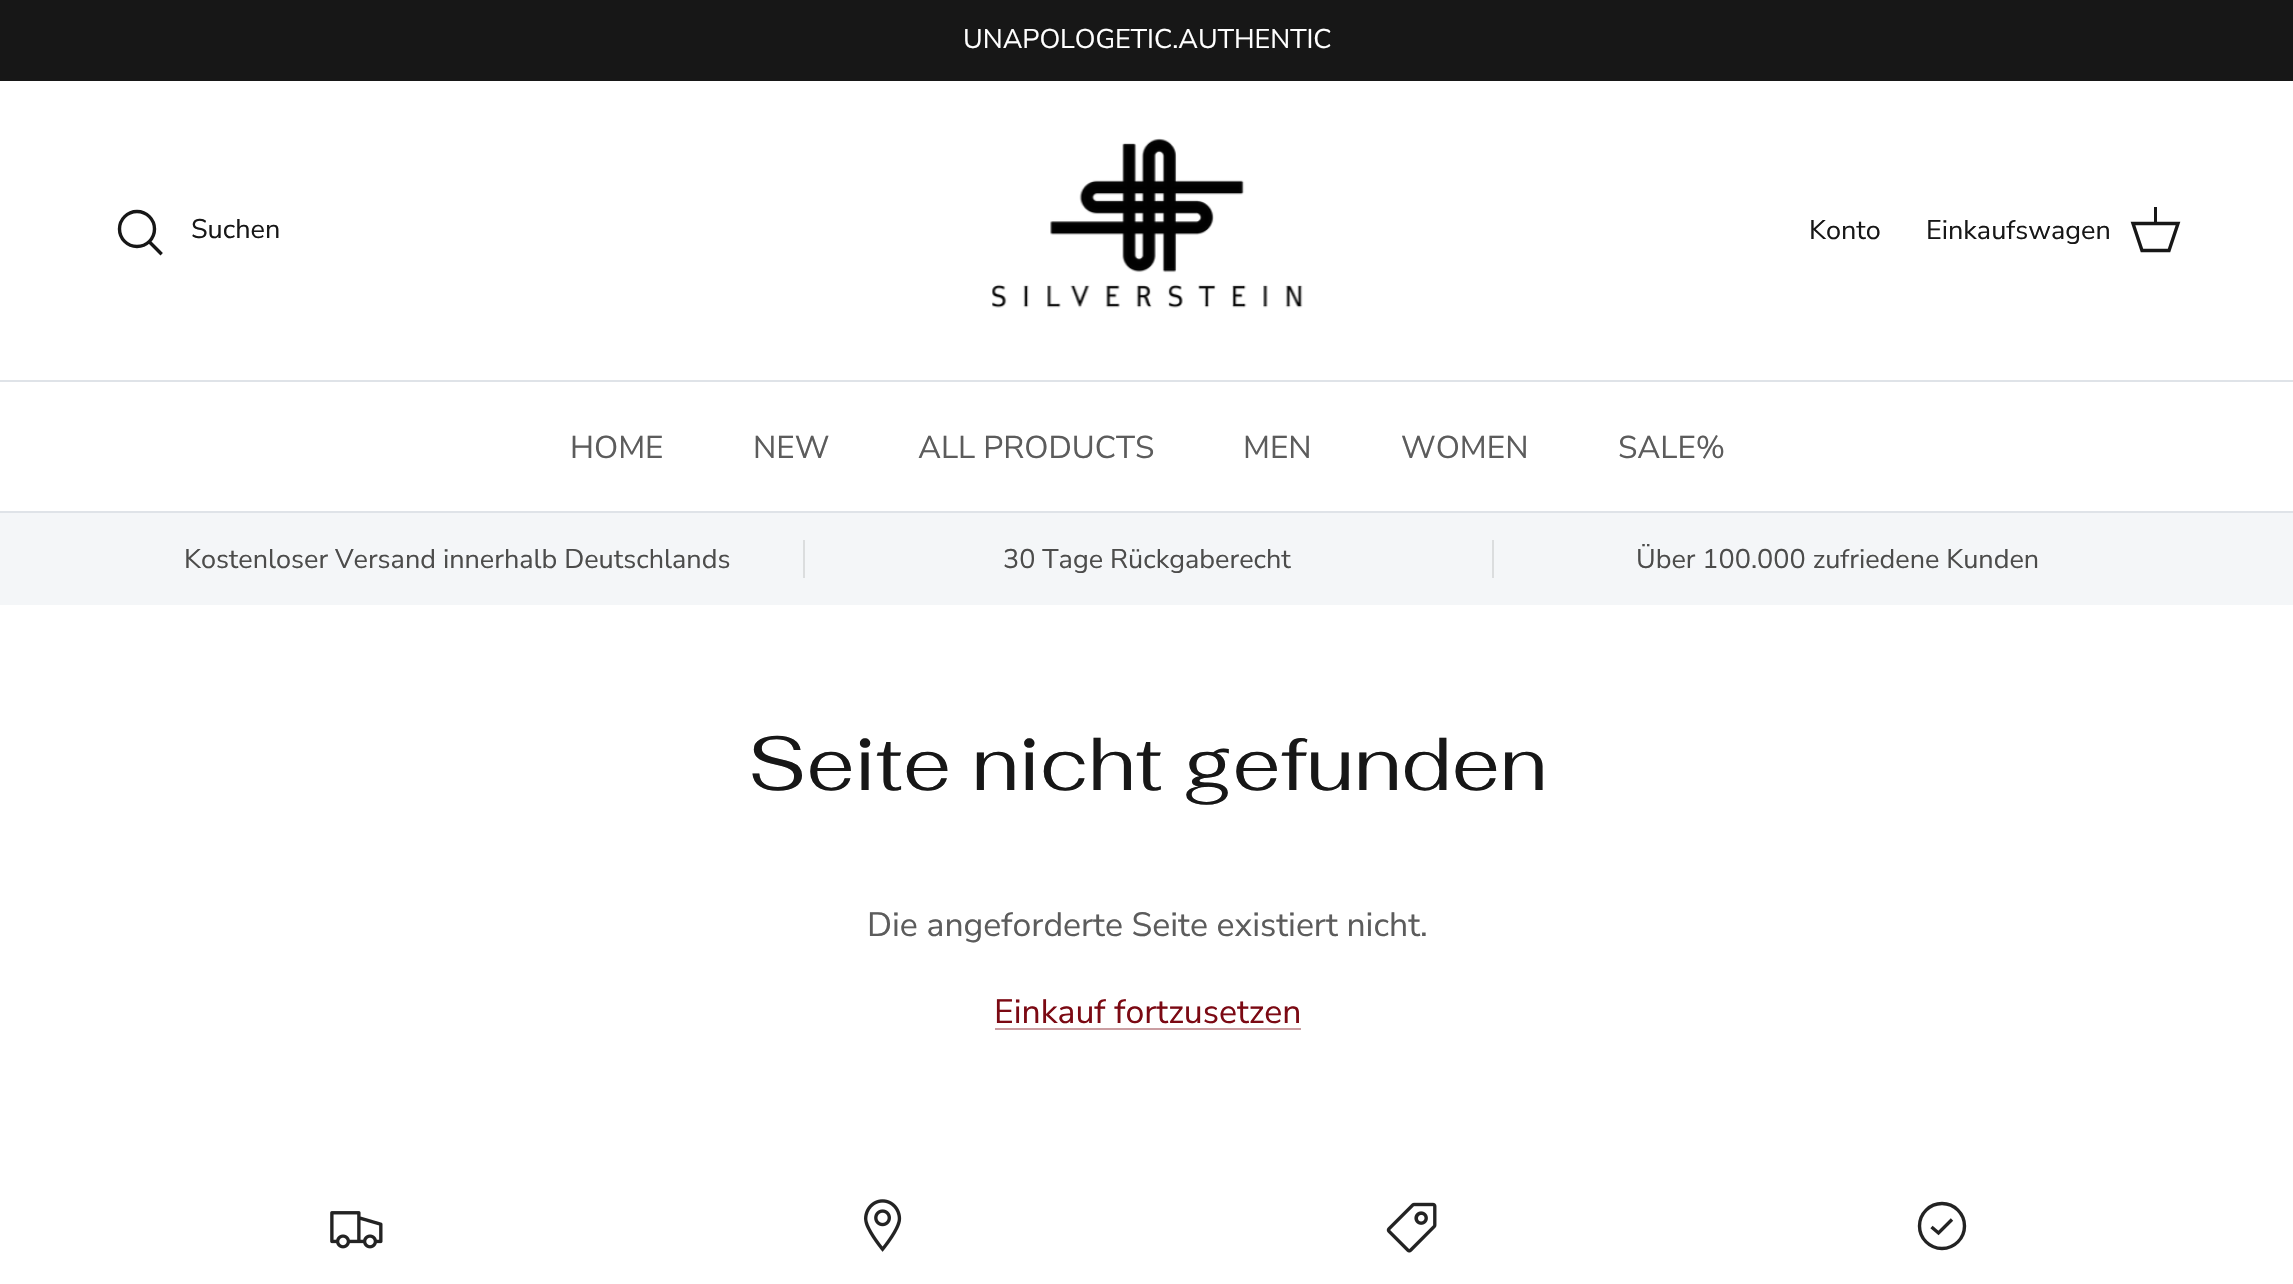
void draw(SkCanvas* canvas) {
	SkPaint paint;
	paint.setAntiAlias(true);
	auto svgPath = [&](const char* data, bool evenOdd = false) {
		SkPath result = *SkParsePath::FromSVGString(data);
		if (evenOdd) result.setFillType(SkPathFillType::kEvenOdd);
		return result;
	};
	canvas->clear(0xffffffff);
	paint.setColor(0xff171717);
	canvas->drawRect(SkRect::MakeXYWH(0, 0, 2293, 81), paint);
	SkFont f1(fontMgr->matchFamilyStyle("Nunito Sans", SkFontStyle::Normal()), 27);
	f1.setSubpixel(true);
	paint.setColor(0xffffffff);
	canvas->drawString("UNAPOLOGETIC.AUTHENTIC", 963, 48, f1, paint);
	paint.setColor(0xffdfe3e8);
	canvas->drawRect(SkRect::MakeXYWH(0, 380, 2293, 2), paint);
	paint.setStroke(true);
	paint.setStrokeWidth(3.4);
	paint.setColor(0xff171717);
	canvas->drawCircle(137, 229, 17.5, paint);
	paint.setStroke(false);
	canvas->drawString("Suchen", 191, 238, f1, paint);
	paint.setStroke(true);
	paint.setStrokeCap(SkPaint::kSquare_Cap);
	canvas->drawPath(svgPath("M150.5 243L160.5 253"), paint);
	canvas->drawImageRect(SkImages::DeferredFromEncodedData(SkData::MakeFromFileName("img1.png")), SkRect::MakeXYWH(991, 138, 312, 170), SkSamplingOptions());
	paint.setStroke(false);
	canvas->drawString("Konto", 1809, 239, f1, paint);
	canvas->drawString("Einkaufswagen", 1926, 239, f1, paint);
	paint.setStroke(true);
	paint.setStrokeCap(SkPaint::kButt_Cap);
	canvas->drawPath(svgPath("M2133 223.5H2178L2169 250.5H2142Z"), paint);
	paint.setStroke(false);
	canvas->drawRect(SkRect::MakeXYWH(2154, 207, 3, 18), paint);
	paint.setColor(0xffdfe3e8);
	canvas->drawRect(SkRect::MakeXYWH(0, 511, 2293, 2), paint);
	SkFont f2(fontMgr->matchFamilyStyle("Nunito Sans", SkFontStyle::Normal()), 31.5);
	f2.setSubpixel(true);
	paint.setColor(0xff5c5c5c);
	canvas->drawString("HOME", 570, 458, f2, paint);
	canvas->drawString("NEW", 753, 458, f2, paint);
	canvas->drawString("ALL PRODUCTS", 918, 458, f2, paint);
	canvas->drawString("MEN", 1243, 458, f2, paint);
	canvas->drawString("WOMEN", 1401, 458, f2, paint);
	canvas->drawString("SALE%", 1618, 458, f2, paint);
	paint.setColor(0xfff4f6f8);
	canvas->drawRect(SkRect::MakeXYWH(0, 513, 2293, 92), paint);
	paint.setColor(0xff4c4c4b);
	canvas->drawString("Kostenloser Versand innerhalb Deutschlands", 184, 568, f1, paint);
	paint.setColor(0xffdbddde);
	canvas->drawRect(SkRect::MakeXYWH(803, 540, 2, 38), paint);
	paint.setColor(0xff4c4c4b);
	canvas->drawString("30 Tage Rückgaberecht", 1003, 568, f1, paint);
	paint.setColor(0xffdbddde);
	canvas->drawRect(SkRect::MakeXYWH(1492, 540, 2, 38), paint);
	paint.setColor(0xff4c4c4b);
	canvas->drawString("Über 100.000 zufriedene Kunden", 1636, 568, f1, paint);
	SkFont f3(fontMgr->matchFamilyStyle("Fahkwang", SkFontStyle::Normal()), 76.5);
	f3.setSubpixel(true);
	paint.setColor(0xff171717);
	canvas->drawString("Seite nicht gefunden", 748, 790, f3, paint);
	SkFont f4(fontMgr->matchFamilyStyle("Nunito Sans", SkFontStyle::Normal()), 33.75);
	f4.setSubpixel(true);
	paint.setColor(0xff5c5c5c);
	canvas->drawString("Die angeforderte Seite existiert nicht.", 867, 936, f4, paint);
	paint.setColor(0xff7b0913);
	canvas->drawString("Einkauf fortzusetzen", 994, 1023, f4, paint);
	paint.setColor(0xffca9da1);
	canvas->drawRect(SkRect::MakeXYWH(995, 1028, 306, 2), paint);
	canvas->drawImageRect(SkImages::DeferredFromEncodedData(SkData::MakeFromFileName("img2.png")), SkRect::MakeXYWH(330, 1211, 53, 38), SkSamplingOptions());
	canvas->drawImageRect(SkImages::DeferredFromEncodedData(SkData::MakeFromFileName("img3.png")), SkRect::MakeXYWH(864, 1199, 38, 53), SkSamplingOptions());
	canvas->drawImageRect(SkImages::DeferredFromEncodedData(SkData::MakeFromFileName("img4.png")), SkRect::MakeXYWH(1386, 1202, 51, 51), SkSamplingOptions());
	paint.setStroke(true);
	paint.setColor(0xff232323);
	canvas->drawCircle(1942, 1226, 22.5, paint);
	canvas->drawPath(svgPath("M1952 1219.5L1938.5 1233L1931.5 1227"), paint);
}
